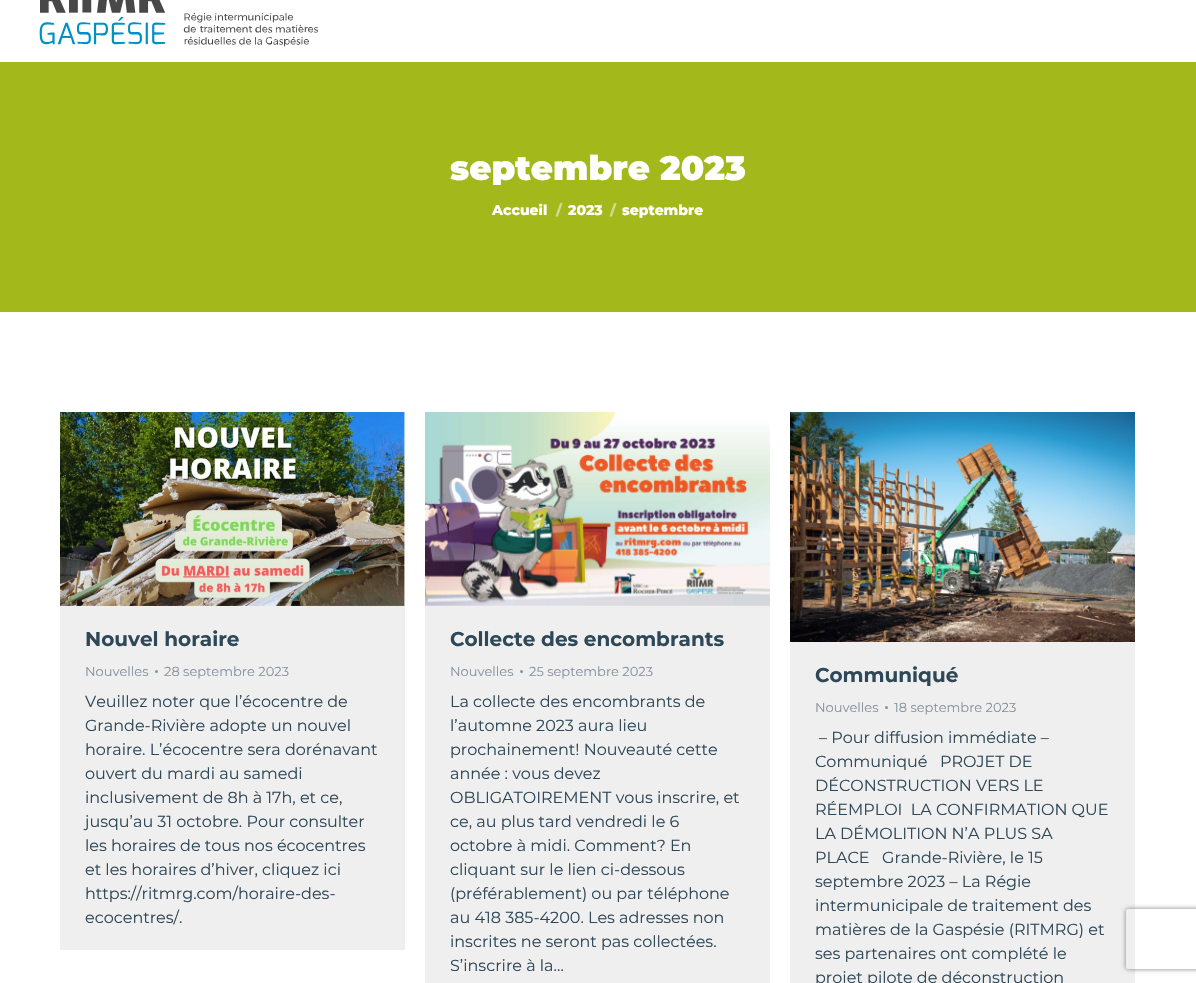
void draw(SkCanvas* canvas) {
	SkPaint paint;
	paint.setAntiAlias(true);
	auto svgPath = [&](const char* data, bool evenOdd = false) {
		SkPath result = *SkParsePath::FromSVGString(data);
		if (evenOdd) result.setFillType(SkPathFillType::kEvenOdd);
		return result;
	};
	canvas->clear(0xffffffff);
	canvas->drawImageRect(SkImages::DeferredFromEncodedData(SkData::MakeFromFileName("img1.png")), SkRect::MakeXYWH(39, 0, 279, 47), SkSamplingOptions());
	paint.setColor(0xffa3b91b);
	canvas->drawRect(SkRect::MakeXYWH(0, 62, 1196, 250), paint);
	canvas->save();
	canvas->clipRect(SkRect::MakeXYWH(450, 151, 296, 34));
	SkFont f1(fontMgr->matchFamilyStyle("Montserrat", SkFontStyle(900, SkFontStyle::kNormal_Width, SkFontStyle::kUpright_Slant)), 34);
	f1.setSubpixel(true);
	paint.setColor(0xffffffff);
	canvas->drawString("septembre 2023", 450, 180, f1, paint);
	canvas->restore();
	SkFont f2(fontMgr->matchFamilyStyle("Montserrat", SkFontStyle(800, SkFontStyle::kNormal_Width, SkFontStyle::kUpright_Slant)), 14);
	f2.setSubpixel(true);
	canvas->drawString("Accueil", 492, 215, f2, paint);
	paint.setColor(0xffd1dc8d);
	canvas->drawString("/", 556, 215, f2, paint);
	paint.setColor(0xffffffff);
	canvas->drawString("2023", 568, 215, f2, paint);
	paint.setColor(0xffd1dc8d);
	canvas->drawString("/", 610, 215, f2, paint);
	paint.setColor(0xffffffff);
	canvas->drawString("septembre", 622, 215, f2, paint);
	paint.setColor(0xffefefef);
	canvas->drawRect(SkRect::MakeXYWH(60, 605, 345, 345), paint);
	canvas->drawImageRect(SkImages::DeferredFromEncodedData(SkData::MakeFromFileName("img2.png")), SkRect::MakeXYWH(60, 412, 345, 194), SkSamplingOptions());
	SkFont f3(fontMgr->matchFamilyStyle("Montserrat", SkFontStyle::Bold()), 20);
	f3.setSubpixel(true);
	paint.setColor(0xff2f4858);
	canvas->drawString("Nouvel horaire", 85, 646, f3, paint);
	SkFont f4(fontMgr->matchFamilyStyle("Montserrat", SkFontStyle::Normal()), 13);
	f4.setSubpixel(true);
	paint.setColor(0xff8893a0);
	canvas->drawString("Nouvelles", 85, 676, f4, paint);
	canvas->drawCircle(156.5, 671.5, 1.5, paint);
	canvas->drawString("28 septembre 2023", 164, 676, f4, paint);
	SkFont f5(fontMgr->matchFamilyStyle("Montserrat", SkFontStyle::Normal()), 16);
	f5.setSubpixel(true);
	paint.setColor(0xff2f4858);
	canvas->drawString("Veuillez noter que l’écocentre de", 85, 707, f5, paint);
	canvas->drawString("Grande-Rivière adopte un nouvel", 85, 731, f5, paint);
	canvas->drawString("horaire. L’écocentre sera dorénavant", 85, 755, f5, paint);
	canvas->drawString("ouvert du mardi au samedi", 85, 779, f5, paint);
	canvas->drawString("inclusivement de 8h à 17h, et ce,", 85, 803, f5, paint);
	canvas->drawString("jusqu’au 31 octobre. Pour consulter", 85, 827, f5, paint);
	canvas->drawString("les horaires de tous nos écocentres", 85, 851, f5, paint);
	canvas->drawString("et les horaires d’hiver, cliquez ici", 85, 875, f5, paint);
	canvas->drawString("https://ritmrg.com/horaire-des-", 85, 899, f5, paint);
	canvas->drawString("ecocentres/.", 85, 923, f5, paint);
	paint.setColor(0xffefefef);
	canvas->drawRect(SkRect::MakeXYWH(425, 412, 345, 571), paint);
	canvas->drawImageRect(SkImages::DeferredFromEncodedData(SkData::MakeFromFileName("img3.png")), SkRect::MakeXYWH(425, 412, 345, 194), SkSamplingOptions());
	paint.setColor(0xff2f4858);
	canvas->drawString("Collecte des encombrants", 450, 646, f3, paint);
	paint.setColor(0xff8893a0);
	canvas->drawString("Nouvelles", 450, 676, f4, paint);
	canvas->drawCircle(521.5, 671.5, 1.5, paint);
	canvas->drawString("25 septembre 2023", 529, 676, f4, paint);
	paint.setColor(0xff2f4858);
	canvas->drawString("La collecte des encombrants de", 450, 707, f5, paint);
	canvas->drawString("l’automne 2023 aura lieu", 450, 731, f5, paint);
	canvas->drawString("prochainement! Nouveauté cette", 450, 755, f5, paint);
	canvas->drawString("année : vous devez", 450, 779, f5, paint);
	canvas->drawString("OBLIGATOIREMENT vous inscrire, et", 450, 803, f5, paint);
	canvas->drawString("ce, au plus tard vendredi le 6", 450, 827, f5, paint);
	canvas->drawString("octobre à midi. Comment? En", 450, 851, f5, paint);
	canvas->drawString("cliquant sur le lien ci-dessous", 450, 875, f5, paint);
	canvas->drawString("(préférablement) ou par téléphone", 450, 899, f5, paint);
	canvas->drawString("au 418 385-4200. Les adresses non", 450, 923, f5, paint);
	canvas->drawString("inscrites ne seront pas collectées.", 450, 947, f5, paint);
	canvas->drawString("S’inscrire à la…", 450, 971, f5, paint);
	paint.setColor(0xffefefef);
	canvas->drawRect(SkRect::MakeXYWH(790, 642, 345, 341), paint);
	canvas->drawImageRect(SkImages::DeferredFromEncodedData(SkData::MakeFromFileName("img4.png")), SkRect::MakeXYWH(790, 412, 345, 230), SkSamplingOptions());
	paint.setColor(0xff2f4858);
	canvas->drawString("Communiqué", 815, 682, f3, paint);
	paint.setColor(0xff8893a0);
	canvas->drawString("Nouvelles", 815, 712, f4, paint);
	canvas->drawCircle(886.5, 707.5, 1.5, paint);
	canvas->drawString("18 septembre 2023", 894, 712, f4, paint);
	paint.setColor(0xff2f4858);
	canvas->drawString("– Pour diffusion immédiate –", 819, 743, f5, paint);
	canvas->drawString("Communiqué   PROJET DE", 815, 767, f5, paint);
	canvas->drawString("DÉCONSTRUCTION VERS LE", 815, 791, f5, paint);
	canvas->drawString("RÉEMPLOI  LA CONFIRMATION QUE", 815, 815, f5, paint);
	canvas->drawString("LA DÉMOLITION N’A PLUS SA", 815, 839, f5, paint);
	canvas->drawString("PLACE   Grande-Rivière, le 15", 815, 863, f5, paint);
	canvas->drawString("septembre 2023 – La Régie", 815, 887, f5, paint);
	canvas->drawString("intermunicipale de traitement des", 815, 911, f5, paint);
	canvas->drawString("matières de la Gaspésie (RITMRG) et", 815, 935, f5, paint);
	canvas->drawString("ses partenaires ont complété le", 815, 959, f5, paint);
	canvas->drawString("projet pilote de déconstruction", 815, 983, f5, paint);
	canvas->save();
	canvas->clipPath(svgPath("M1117 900H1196V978H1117ZM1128 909H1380C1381 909 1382 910 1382 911V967C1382 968 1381 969 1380 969H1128C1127 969 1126 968 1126 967V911C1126 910 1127 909 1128 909Z", true), true);
	paint.setColor(0xff808080);
	paint.setMaskFilter(SkMaskFilter::MakeBlur(kNormal_SkBlurStyle, 2.5));
	canvas->drawRoundRect(SkRect::MakeXYWH(1126, 909, 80, 60), 2, 2, paint);
	paint.setMaskFilter(nullptr);
	canvas->restore();
}
